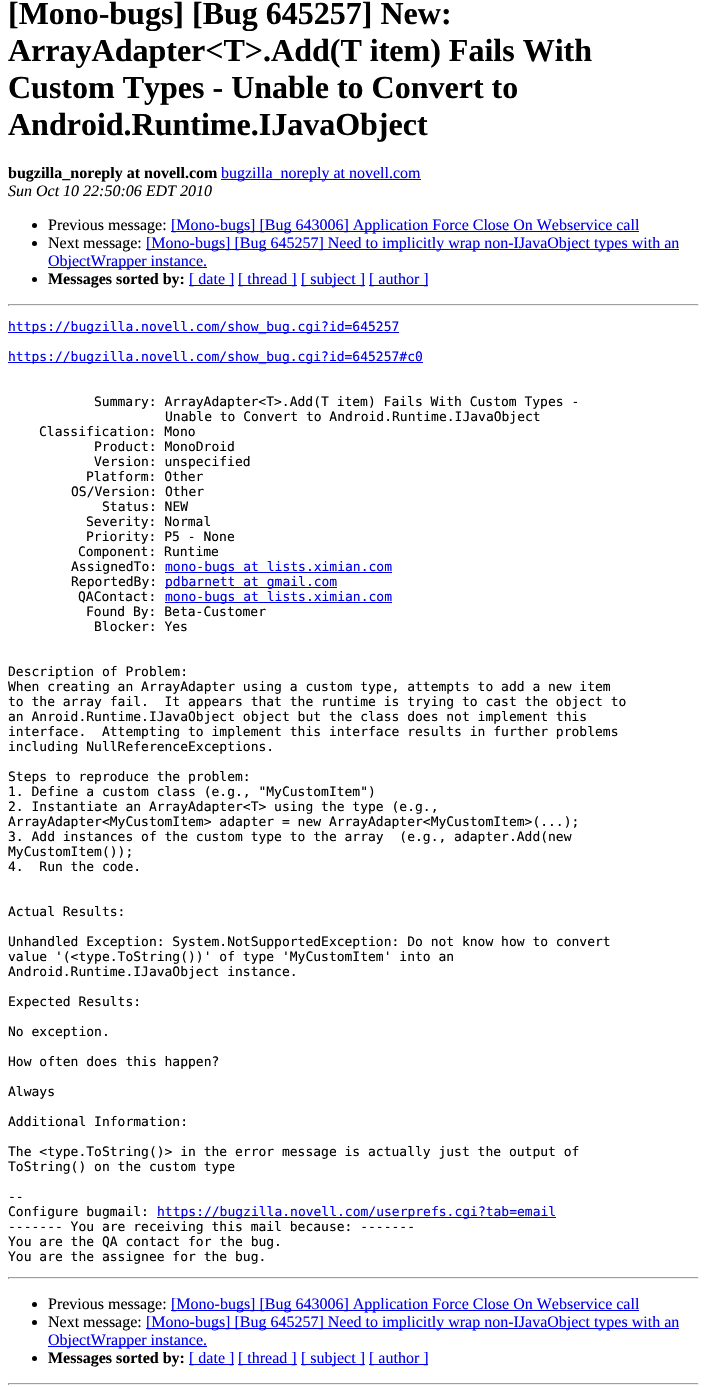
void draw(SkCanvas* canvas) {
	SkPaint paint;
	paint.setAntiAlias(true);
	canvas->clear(0xffffffff);
	SkFont f1(fontMgr->matchFamilyStyle("Liberation Serif", SkFontStyle::Bold()), 32);
	f1.setSubpixel(true);
	paint.setColor(0xff000000);
	canvas->drawString("[Mono-bugs] [Bug 645257] New:", 8, 24, f1, paint);
	canvas->drawString("ArrayAdapter<T>.Add(T item) Fails With", 8, 61, f1, paint);
	canvas->drawString("Custom Types - Unable to Convert to", 8, 98, f1, paint);
	canvas->drawString("Android.Runtime.IJavaObject", 8, 135, f1, paint);
	SkFont f2(fontMgr->matchFamilyStyle("Liberation Serif", SkFontStyle::Bold()), 16);
	f2.setSubpixel(true);
	canvas->drawString("bugzilla_noreply at novell.com", 8, 178, f2, paint);
	paint.setColor(0xff0000ee);
	canvas->drawRect(SkRect::MakeXYWH(221, 179, 200, 1), paint);
	SkFont f3(fontMgr->matchFamilyStyle("Liberation Serif", SkFontStyle::Normal()), 16);
	f3.setSubpixel(true);
	canvas->drawString("bugzilla_noreply at novell.com", 221, 178, f3, paint);
	SkFont f4(fontMgr->matchFamilyStyle("Liberation Serif", SkFontStyle::Italic()), 16);
	f4.setSubpixel(true);
	paint.setColor(0xff000000);
	canvas->drawString("Sun Oct 10 22:50:06 EDT 2010", 8, 196, f4, paint);
	canvas->drawCircle(34.5, 225.5, 2.5, paint);
	canvas->drawString("Previous message:", 48, 230, f3, paint);
	paint.setColor(0xff0000ee);
	canvas->drawRect(SkRect::MakeXYWH(171, 231, 468, 1), paint);
	canvas->drawString("[Mono-bugs] [Bug 643006] Application Force Close On Webservice call", 171, 230, f3, paint);
	paint.setColor(0xff000000);
	canvas->drawCircle(34.5, 243.5, 2.5, paint);
	canvas->drawString("Next message:", 48, 248, f3, paint);
	paint.setColor(0xff0000ee);
	canvas->drawRect(SkRect::MakeXYWH(146, 249, 533, 1), paint);
	canvas->drawString("[Mono-bugs] [Bug 645257] Need to implicitly wrap non-IJavaObject types with an", 146, 248, f3, paint);
	canvas->drawRect(SkRect::MakeXYWH(48, 267, 159, 1), paint);
	canvas->drawString("ObjectWrapper instance.", 48, 266, f3, paint);
	paint.setColor(0xff000000);
	canvas->drawCircle(34.5, 279.5, 2.5, paint);
	canvas->drawString("Messages sorted by:", 48, 284, f2, paint);
	paint.setColor(0xff0000ee);
	canvas->drawRect(SkRect::MakeXYWH(189, 285, 45, 1), paint);
	canvas->drawString("[ date ]", 189, 284, f3, paint);
	canvas->drawRect(SkRect::MakeXYWH(238, 285, 59, 1), paint);
	canvas->drawString("[ thread ]", 238, 284, f3, paint);
	canvas->drawRect(SkRect::MakeXYWH(301, 285, 64, 1), paint);
	canvas->drawString("[ subject ]", 301, 284, f3, paint);
	canvas->drawRect(SkRect::MakeXYWH(369, 285, 59, 1), paint);
	canvas->drawString("[ author ]", 369, 284, f3, paint);
	paint.setColor(0xff9f9f9f);
	canvas->drawRect(SkRect::MakeXYWH(8, 304, 691, 1), paint);
	paint.setColor(0xffeeeeee);
	canvas->drawRect(SkRect::MakeXYWH(698, 304, 1, 2), paint);
	canvas->drawRect(SkRect::MakeXYWH(8, 305, 691, 1), paint);
	paint.setColor(0xff9f9f9f);
	canvas->drawRect(SkRect::MakeXYWH(8, 304, 1, 2), paint);
	paint.setColor(0xff0000ee);
	canvas->drawRect(SkRect::MakeXYWH(8, 332, 391, 1), paint);
	SkFont f5(fontMgr->matchFamilyStyle("DejaVu Sans Mono", SkFontStyle::Normal()), 13);
	f5.setSubpixel(true);
	canvas->drawString("https://bugzilla.novell.com/show_bug.cgi?id=645257", 8, 331, f5, paint);
	canvas->drawRect(SkRect::MakeXYWH(8, 362, 415, 1), paint);
	canvas->drawString("https://bugzilla.novell.com/show_bug.cgi?id=645257#c0", 8, 361, f5, paint);
	paint.setColor(0xff000000);
	canvas->drawString("Summary: ArrayAdapter<T>.Add(T item) Fails With Custom Types -", 94, 406, f5, paint);
	canvas->drawString("Unable to Convert to Android.Runtime.IJavaObject", 165, 421, f5, paint);
	canvas->drawString("Classification: Mono", 39, 436, f5, paint);
	canvas->drawString("Product: MonoDroid", 94, 451, f5, paint);
	canvas->drawString("Version: unspecified", 94, 466, f5, paint);
	canvas->drawString("Platform: Other", 86, 481, f5, paint);
	canvas->drawString("OS/Version: Other", 71, 496, f5, paint);
	canvas->drawString("Status: NEW", 102, 511, f5, paint);
	canvas->drawString("Severity: Normal", 86, 526, f5, paint);
	canvas->drawString("Priority: P5 - None", 86, 541, f5, paint);
	canvas->drawString("Component: Runtime", 78, 556, f5, paint);
	canvas->drawString("AssignedTo:", 71, 571, f5, paint);
	paint.setColor(0xff0000ee);
	canvas->drawRect(SkRect::MakeXYWH(165, 572, 227, 1), paint);
	canvas->drawString("mono-bugs at lists.ximian.com", 165, 571, f5, paint);
	paint.setColor(0xff000000);
	canvas->drawString("ReportedBy:", 71, 586, f5, paint);
	paint.setColor(0xff0000ee);
	canvas->drawRect(SkRect::MakeXYWH(165, 587, 172, 1), paint);
	canvas->drawString("pdbarnett at gmail.com", 165, 586, f5, paint);
	paint.setColor(0xff000000);
	canvas->drawString("QAContact:", 78, 601, f5, paint);
	paint.setColor(0xff0000ee);
	canvas->drawRect(SkRect::MakeXYWH(165, 602, 227, 1), paint);
	canvas->drawString("mono-bugs at lists.ximian.com", 165, 601, f5, paint);
	paint.setColor(0xff000000);
	canvas->drawString("Found By: Beta-Customer", 86, 616, f5, paint);
	canvas->drawString("Blocker: Yes", 94, 631, f5, paint);
	canvas->drawString("Description of Problem:", 8, 676, f5, paint);
	canvas->drawString("When creating an ArrayAdapter using a custom type, attempts to add a new item", 8, 691, f5, paint);
	canvas->drawString("to the array fail.  It appears that the runtime is trying to cast the object to", 8, 706, f5, paint);
	canvas->drawString("an Anroid.Runtime.IJavaObject object but the class does not implement this", 8, 721, f5, paint);
	canvas->drawString("interface.  Attempting to implement this interface results in further problems", 8, 736, f5, paint);
	canvas->drawString("including NullReferenceExceptions.", 8, 751, f5, paint);
	canvas->drawString("Steps to reproduce the problem:", 8, 781, f5, paint);
	canvas->drawString("1. Define a custom class (e.g., \"MyCustomItem\")", 8, 796, f5, paint);
	canvas->drawString("2. Instantiate an ArrayAdapter<T> using the type (e.g.,", 8, 811, f5, paint);
	canvas->drawString("ArrayAdapter<MyCustomItem> adapter = new ArrayAdapter<MyCustomItem>(...);", 8, 826, f5, paint);
	canvas->drawString("3. Add instances of the custom type to the array  (e.g., adapter.Add(new", 8, 841, f5, paint);
	canvas->drawString("MyCustomItem());", 8, 856, f5, paint);
	canvas->drawString("4.  Run the code.", 8, 871, f5, paint);
	canvas->drawString("Actual Results:", 8, 916, f5, paint);
	canvas->drawString("Unhandled Exception: System.NotSupportedException: Do not know how to convert", 8, 946, f5, paint);
	canvas->drawString("value '(<type.ToString())' of type 'MyCustomItem' into an", 8, 961, f5, paint);
	canvas->drawString("Android.Runtime.IJavaObject instance.", 8, 976, f5, paint);
	canvas->drawString("Expected Results:", 8, 1006, f5, paint);
	canvas->drawString("No exception.", 8, 1036, f5, paint);
	canvas->drawString("How often does this happen?", 8, 1066, f5, paint);
	canvas->drawString("Always", 8, 1096, f5, paint);
	canvas->drawString("Additional Information:", 8, 1126, f5, paint);
	canvas->drawString("The <type.ToString()> in the error message is actually just the output of", 8, 1156, f5, paint);
	canvas->drawString("ToString() on the custom type", 8, 1171, f5, paint);
	canvas->drawString("--", 8, 1201, f5, paint);
	canvas->drawString("Configure bugmail:", 8, 1216, f5, paint);
	paint.setColor(0xff0000ee);
	canvas->drawRect(SkRect::MakeXYWH(157, 1217, 399, 1), paint);
	canvas->drawString("https://bugzilla.novell.com/userprefs.cgi?tab=email", 157, 1216, f5, paint);
	paint.setColor(0xff000000);
	canvas->drawString("------- You are receiving this mail because: -------", 8, 1231, f5, paint);
	canvas->drawString("You are the QA contact for the bug.", 8, 1246, f5, paint);
	canvas->drawString("You are the assignee for the bug.", 8, 1261, f5, paint);
	paint.setColor(0xff9f9f9f);
	canvas->drawRect(SkRect::MakeXYWH(8, 1277, 691, 1), paint);
	paint.setColor(0xffeeeeee);
	canvas->drawRect(SkRect::MakeXYWH(698, 1277, 1, 2), paint);
	canvas->drawRect(SkRect::MakeXYWH(8, 1278, 691, 1), paint);
	paint.setColor(0xff9f9f9f);
	canvas->drawRect(SkRect::MakeXYWH(8, 1277, 1, 2), paint);
	paint.setColor(0xff000000);
	canvas->drawCircle(34.5, 1304.5, 2.5, paint);
	canvas->drawString("Previous message:", 48, 1309, f3, paint);
	paint.setColor(0xff0000ee);
	canvas->drawRect(SkRect::MakeXYWH(171, 1310, 468, 1), paint);
	canvas->drawString("[Mono-bugs] [Bug 643006] Application Force Close On Webservice call", 171, 1309, f3, paint);
	paint.setColor(0xff000000);
	canvas->drawCircle(34.5, 1322.5, 2.5, paint);
	canvas->drawString("Next message:", 48, 1327, f3, paint);
	paint.setColor(0xff0000ee);
	canvas->drawRect(SkRect::MakeXYWH(146, 1328, 533, 1), paint);
	canvas->drawString("[Mono-bugs] [Bug 645257] Need to implicitly wrap non-IJavaObject types with an", 146, 1327, f3, paint);
	canvas->drawRect(SkRect::MakeXYWH(48, 1346, 159, 1), paint);
	canvas->drawString("ObjectWrapper instance.", 48, 1345, f3, paint);
	paint.setColor(0xff000000);
	canvas->drawCircle(34.5, 1358.5, 2.5, paint);
	canvas->drawString("Messages sorted by:", 48, 1363, f2, paint);
	paint.setColor(0xff0000ee);
	canvas->drawRect(SkRect::MakeXYWH(189, 1364, 45, 1), paint);
	canvas->drawString("[ date ]", 189, 1363, f3, paint);
	canvas->drawRect(SkRect::MakeXYWH(238, 1364, 59, 1), paint);
	canvas->drawString("[ thread ]", 238, 1363, f3, paint);
	canvas->drawRect(SkRect::MakeXYWH(301, 1364, 64, 1), paint);
	canvas->drawString("[ subject ]", 301, 1363, f3, paint);
	canvas->drawRect(SkRect::MakeXYWH(369, 1364, 59, 1), paint);
	canvas->drawString("[ author ]", 369, 1363, f3, paint);
	paint.setColor(0xff9f9f9f);
	canvas->drawRect(SkRect::MakeXYWH(8, 1383, 691, 1), paint);
	paint.setColor(0xffeeeeee);
	canvas->drawRect(SkRect::MakeXYWH(698, 1383, 1, 2), paint);
	canvas->drawRect(SkRect::MakeXYWH(8, 1384, 691, 1), paint);
	paint.setColor(0xff9f9f9f);
	canvas->drawRect(SkRect::MakeXYWH(8, 1383, 1, 2), paint);
}
